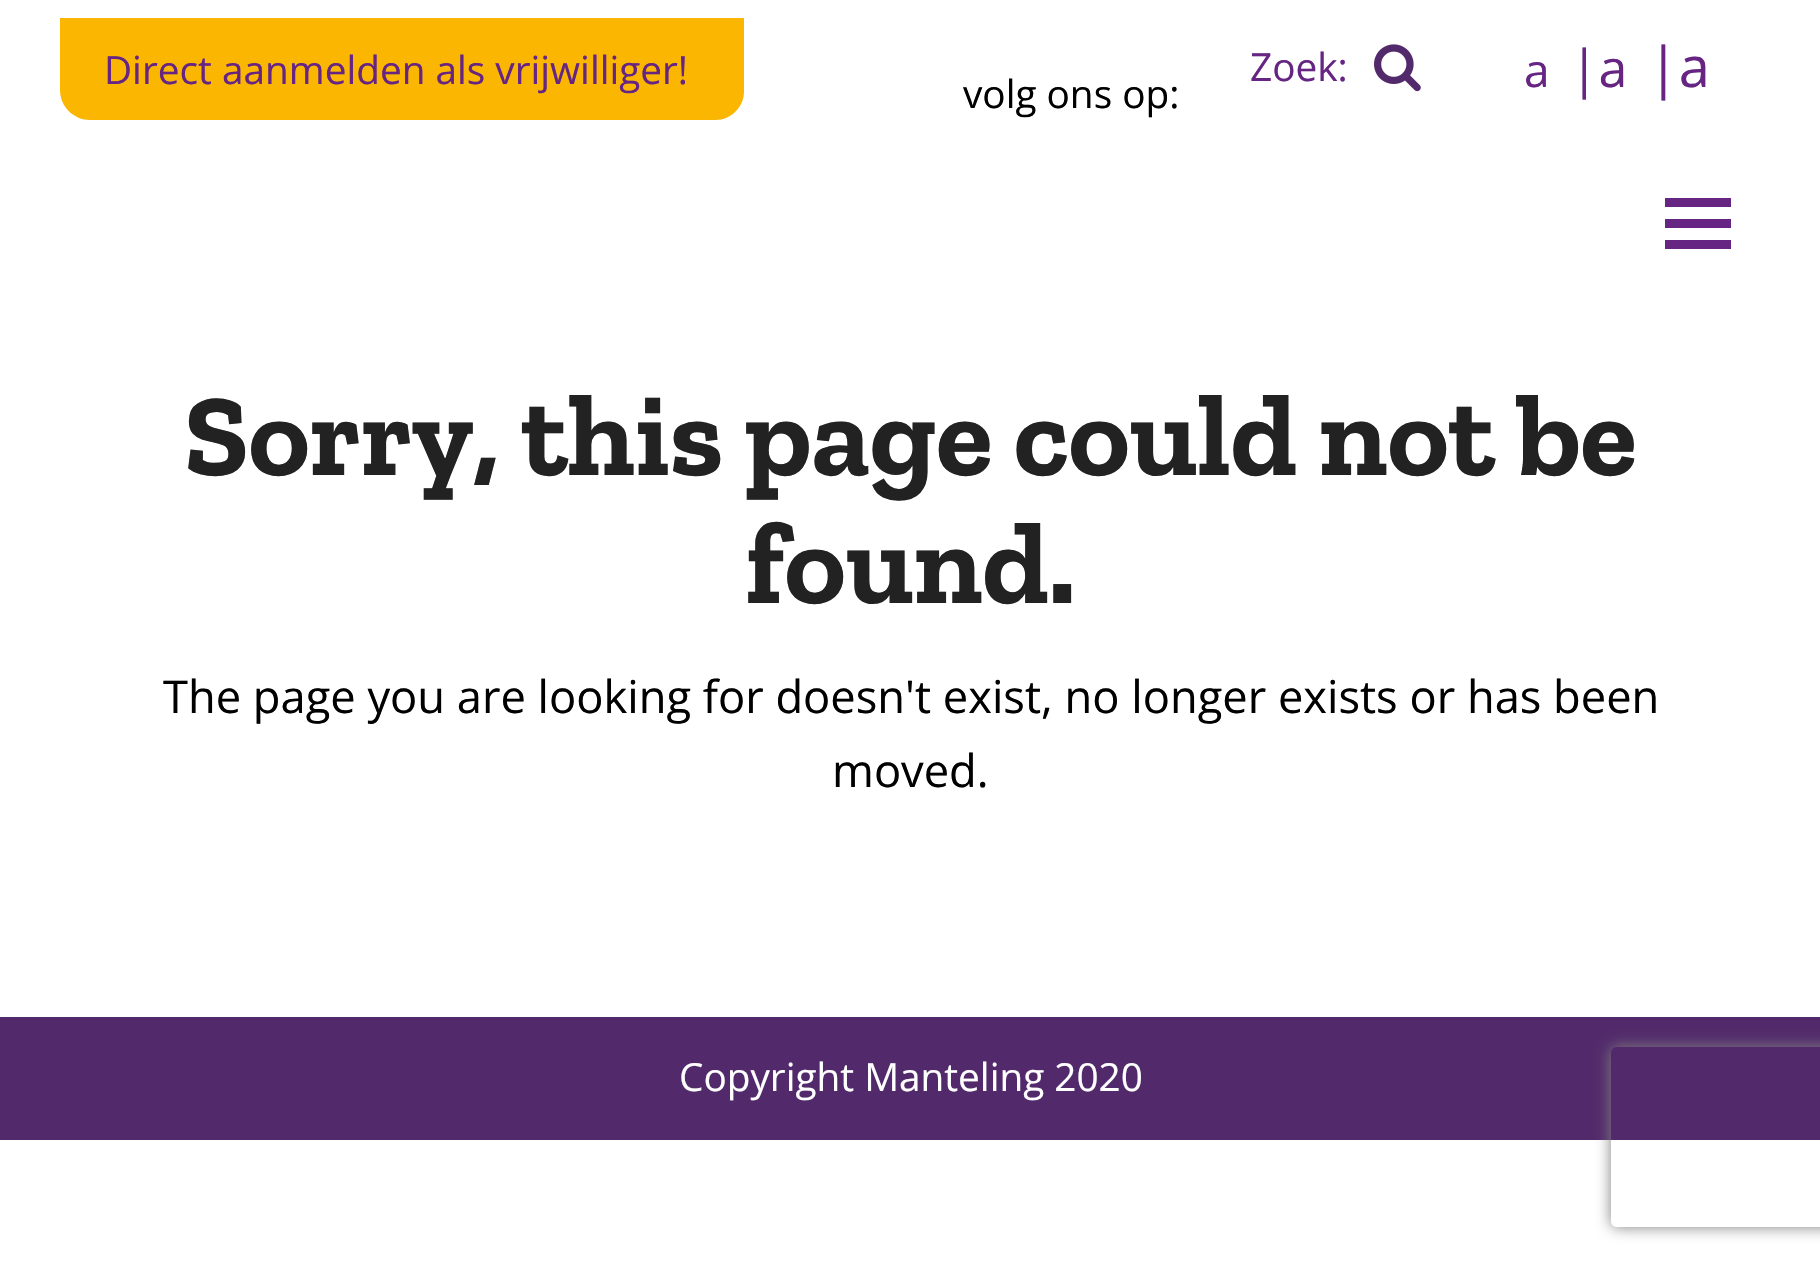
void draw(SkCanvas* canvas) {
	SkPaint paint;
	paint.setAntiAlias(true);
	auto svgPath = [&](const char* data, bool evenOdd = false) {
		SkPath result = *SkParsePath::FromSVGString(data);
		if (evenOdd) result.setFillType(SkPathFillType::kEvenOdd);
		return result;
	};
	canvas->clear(0xffffffff);
	paint.setColor(0xfffab600);
	canvas->drawPath(svgPath("M60 18H687V120H90C73.5 120 60 106.5 60 90Z"), paint);
	SkFont f1(fontMgr->matchFamilyStyle("Open Sans", SkFontStyle::Normal()), 38.75);
	f1.setSubpixel(true);
	paint.setColor(0xff662483);
	canvas->drawString("Direct aanmelden als vrijwilliger!", 104, 84, f1, paint);
	paint.setColor(0xfffab600);
	canvas->drawPath(svgPath("M687 18H744V91.5C744 107 731 120 715.5 120H687Z"), paint);
	paint.setColor(0xff662483);
	canvas->drawString("Zoek:", 1250, 81, f1, paint);
	canvas->drawImageRect(SkImages::DeferredFromEncodedData(SkData::MakeFromFileName("img1.png")), SkRect::MakeXYWH(1374, 44, 47, 48), SkSamplingOptions());
	SkFont f2(fontMgr->matchFamilyStyle("Open Sans", SkFontStyle::Normal()), 46);
	f2.setSubpixel(true);
	canvas->drawString("a", 1524, 87, f2, paint);
	SkFont f3(fontMgr->matchFamilyStyle("Open Sans", SkFontStyle::Normal()), 52);
	f3.setSubpixel(true);
	canvas->drawString("|a", 1570, 87, f3, paint);
	SkFont f4(fontMgr->matchFamilyStyle("Open Sans", SkFontStyle::Normal()), 56);
	f4.setSubpixel(true);
	canvas->drawString("|a", 1648, 87, f4, paint);
	paint.setColor(0xff000000);
	canvas->drawString("volg ons op:", 963, 108, f1, paint);
	paint.setColor(0xff662483);
	canvas->drawRect(SkRect::MakeXYWH(1665, 219, 66, 9), paint);
	canvas->drawRect(SkRect::MakeXYWH(1665, 198, 66, 9), paint);
	canvas->drawRect(SkRect::MakeXYWH(1665, 240, 66, 9), paint);
	SkFont f5(fontMgr->matchFamilyStyle("Zilla Slab", SkFontStyle::Bold()), 116.25);
	f5.setSubpixel(true);
	paint.setColor(0xff222222);
	canvas->drawString("Sorry, this page could not be", 184, 475, f5, paint);
	canvas->drawString("found.", 745, 603, f5, paint);
	SkFont f6(fontMgr->matchFamilyStyle("Open Sans", SkFontStyle::Normal()), 45.25);
	f6.setSubpixel(true);
	paint.setColor(0xff000000);
	canvas->drawString("The page you are looking for doesn't exist, no longer exists or has been", 163, 713, f6, paint);
	canvas->drawString("moved.", 832, 787, f6, paint);
	paint.setColor(0xff522a6b);
	canvas->drawRect(SkRect::MakeXYWH(0, 1017, 1820, 123), paint);
	paint.setColor(0xffffffff);
	canvas->drawString("Copyright Manteling 2020", 679, 1091, f1, paint);
	canvas->save();
	canvas->clipPath(svgPath("M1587 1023H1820V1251H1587ZM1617 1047H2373C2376.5 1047 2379 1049.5 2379 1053V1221C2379 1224.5 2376.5 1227 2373 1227H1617C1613.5 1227 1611 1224.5 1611 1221V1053C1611 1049.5 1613.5 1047 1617 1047Z", true), true);
	paint.setColor(0xff808080);
	paint.setMaskFilter(SkMaskFilter::MakeBlur(kNormal_SkBlurStyle, 7.5));
	canvas->drawRoundRect(SkRect::MakeXYWH(1611, 1047, 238, 180), 6, 6, paint);
	paint.setMaskFilter(nullptr);
	canvas->restore();
}
